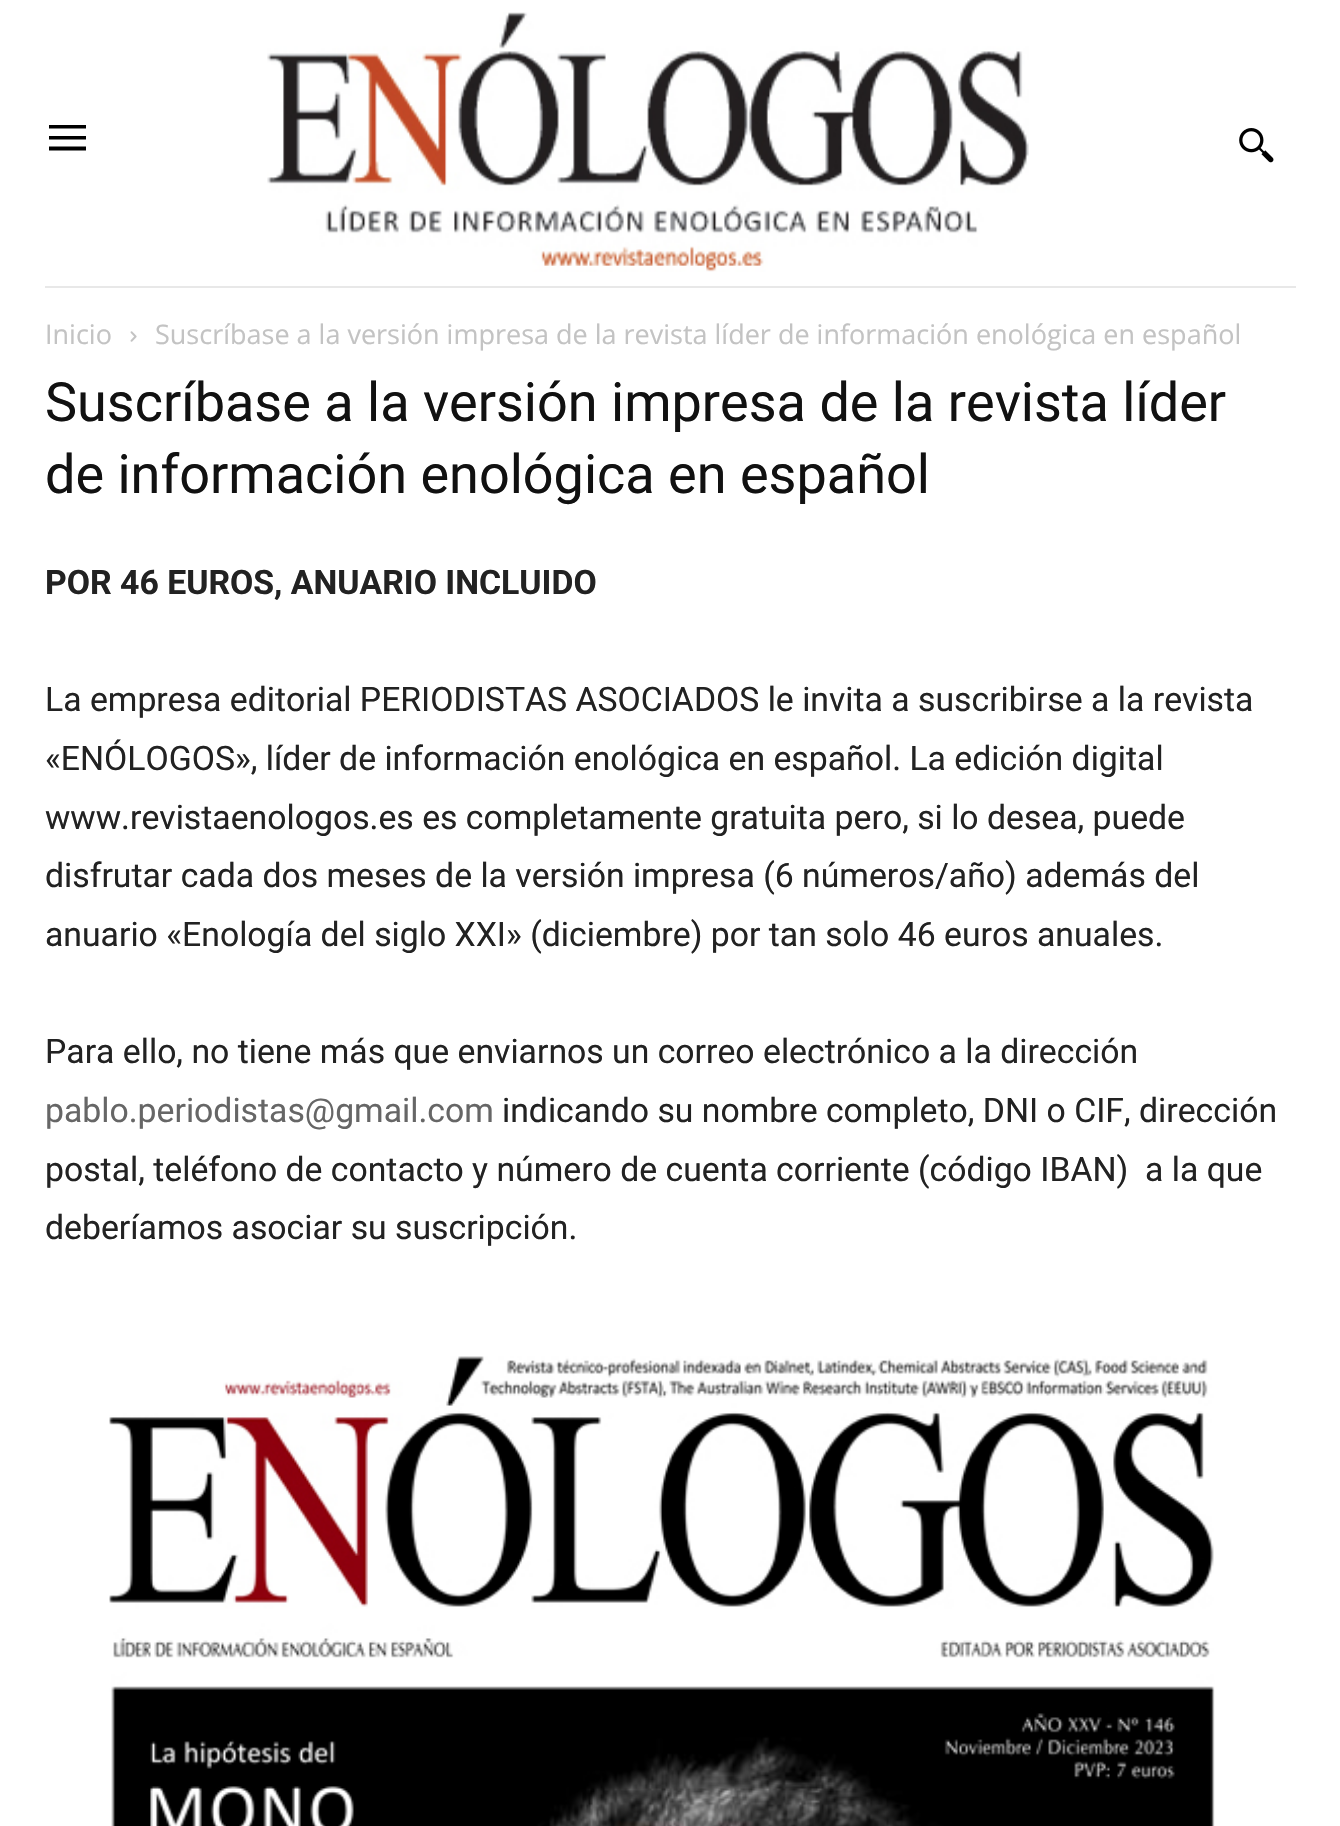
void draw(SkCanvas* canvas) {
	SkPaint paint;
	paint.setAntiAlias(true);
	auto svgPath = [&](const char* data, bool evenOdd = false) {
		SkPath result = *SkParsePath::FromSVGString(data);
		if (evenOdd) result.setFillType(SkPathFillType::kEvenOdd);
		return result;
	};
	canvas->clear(0xffffffff);
	paint.setColor(0xffe8e8e8);
	canvas->drawRect(SkRect::MakeXYWH(45, 286, 1251, 2), paint);
	paint.setColor(0xff000000);
	canvas->drawPath(svgPath("M86 128.5H49V125H86ZM86 139.5H49V136H86ZM86 150.5H49V146.5H86Z"), paint);
	canvas->drawImageRect(SkImages::DeferredFromEncodedData(SkData::MakeFromFileName("img1.png")), SkRect::MakeXYWH(267, 12, 762, 260), SkSamplingOptions());
	canvas->drawImageRect(SkImages::DeferredFromEncodedData(SkData::MakeFromFileName("img2.png")), SkRect::MakeXYWH(1239, 128, 35, 35), SkSamplingOptions());
	SkFont f1(fontMgr->matchFamilyStyle("Open Sans", SkFontStyle::Normal()), 27);
	f1.setSubpixel(true);
	paint.setColor(0xffc3c3c3);
	canvas->drawString("Inicio", 45, 344, f1, paint);
	canvas->drawImageRect(SkImages::DeferredFromEncodedData(SkData::MakeFromFileName("img3.png")), SkRect::MakeXYWH(130, 331, 7, 11), SkSamplingOptions());
	canvas->drawString("Suscríbase a la versión impresa de la revista líder de información enológica en español", 155, 344, f1, paint);
	SkFont f2(fontMgr->matchFamilyStyle("Roboto", SkFontStyle::Normal()), 54);
	f2.setSubpixel(true);
	paint.setColor(0xff111111);
	canvas->drawString("Suscríbase a la versión impresa de la revista líder", 45, 421, f2, paint);
	canvas->drawString("de información enológica en español", 45, 493, f2, paint);
	SkFont f3(fontMgr->matchFamilyStyle("Roboto", SkFontStyle::Bold()), 33.75);
	f3.setSubpixel(true);
	paint.setColor(0xff222222);
	canvas->drawString("POR 46 EUROS, ANUARIO INCLUIDO", 45, 594, f3, paint);
	SkFont f4(fontMgr->matchFamilyStyle("Roboto", SkFontStyle::Normal()), 33.75);
	f4.setSubpixel(true);
	canvas->drawString("La empresa editorial PERIODISTAS ASOCIADOS le invita a suscribirse a la revista", 45, 711, f4, paint);
	canvas->drawString("«ENÓLOGOS», líder de información enológica en español. La edición digital", 45, 770, f4, paint);
	canvas->drawString("www.revistaenologos.es es completamente gratuita pero, si lo desea, puede", 45, 829, f4, paint);
	canvas->drawString("disfrutar cada dos meses de la versión impresa (6 números/año) además del", 45, 887, f4, paint);
	canvas->drawString("anuario «Enología del siglo XXI» (diciembre) por tan solo 46 euros anuales.", 45, 946, f4, paint);
	canvas->drawString("Para ello, no tiene más que enviarnos un correo electrónico a la dirección", 45, 1063, f4, paint);
	paint.setColor(0xff666666);
	canvas->drawString("pablo.periodistas@gmail.com", 45, 1122, f4, paint);
	paint.setColor(0xff222222);
	canvas->drawString("indicando su nombre completo, DNI o CIF, dirección", 502, 1122, f4, paint);
	canvas->drawString("postal, teléfono de contacto y número de cuenta corriente (código IBAN)  a la que", 45, 1181, f4, paint);
	canvas->drawString("deberíamos asociar su suscripción.", 45, 1239, f4, paint);
	canvas->drawImageRect(SkImages::DeferredFromEncodedData(SkData::MakeFromFileName("img4.png")), SkRect::MakeXYWH(109, 1356, 1106, 470), SkSamplingOptions());
}
